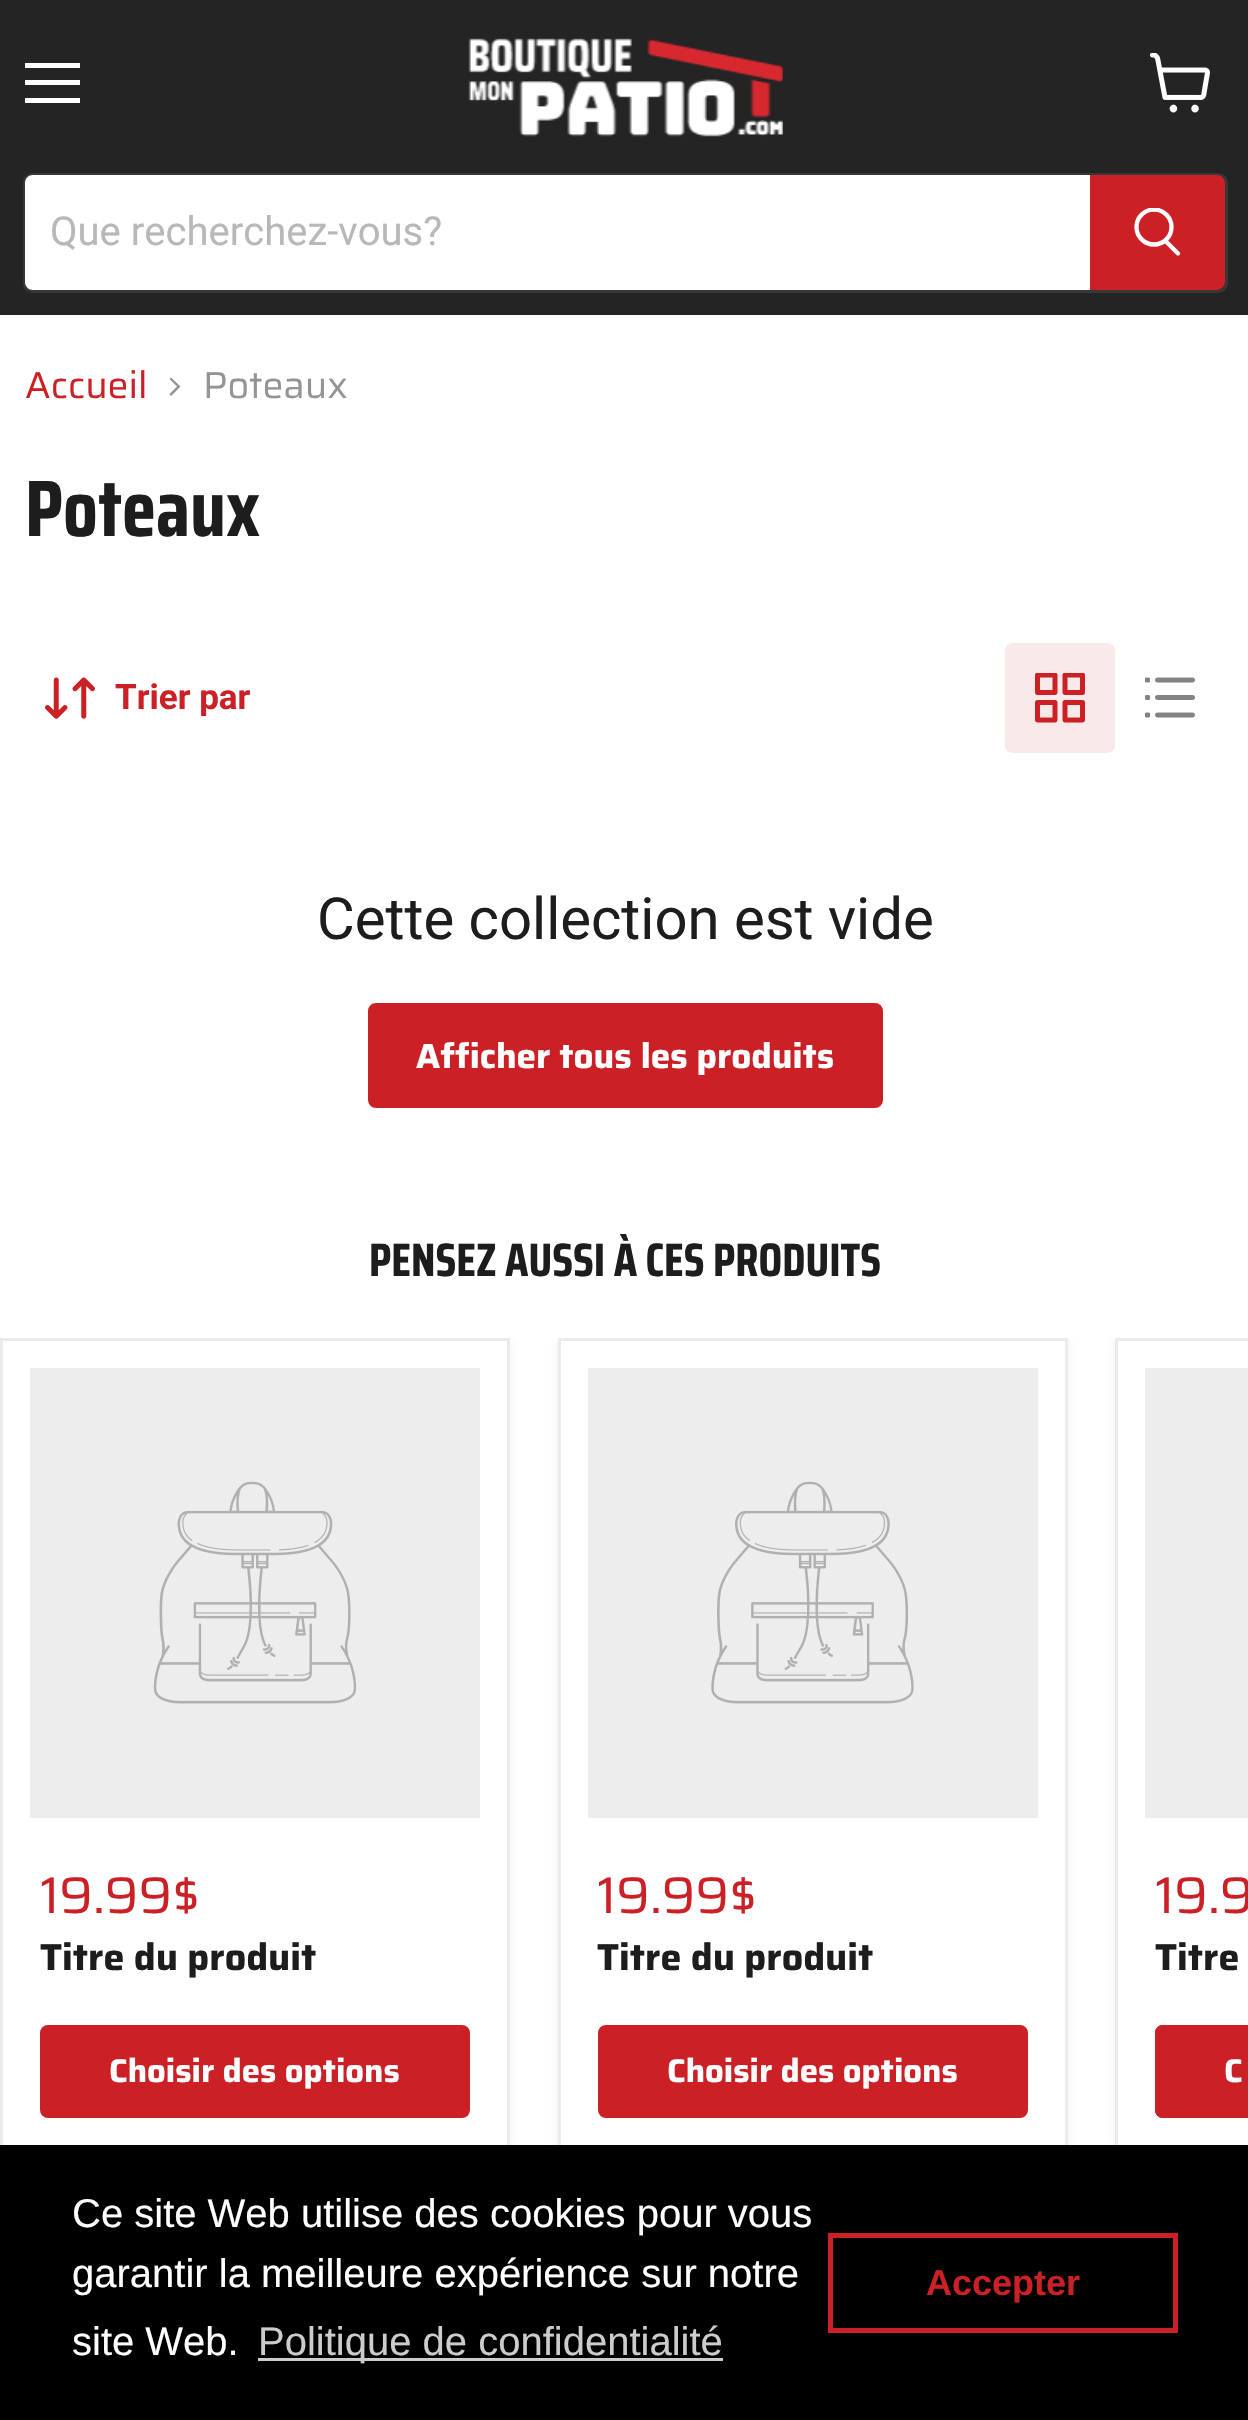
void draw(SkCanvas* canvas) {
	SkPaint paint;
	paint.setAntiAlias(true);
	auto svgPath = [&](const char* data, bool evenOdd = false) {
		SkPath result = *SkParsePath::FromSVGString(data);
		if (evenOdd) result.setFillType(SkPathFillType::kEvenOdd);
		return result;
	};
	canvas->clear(0xffffffff);
	paint.setColor(0xff242424);
	canvas->drawRect(SkRect::MakeXYWH(0, 0, 1248, 315), paint);
	paint.setColor(0xffffffff);
	canvas->drawRect(SkRect::MakeXYWH(25, 63, 55, 5), paint);
	canvas->drawRect(SkRect::MakeXYWH(25, 80, 55, 5), paint);
	canvas->drawRect(SkRect::MakeXYWH(25, 98, 55, 5), paint);
	canvas->drawImageRect(SkImages::DeferredFromEncodedData(SkData::MakeFromFileName("img1.png")), SkRect::MakeXYWH(1150, 53, 60, 60), SkSamplingOptions());
	canvas->drawImageRect(SkImages::DeferredFromEncodedData(SkData::MakeFromFileName("img2.png")), SkRect::MakeXYWH(468, 38, 315, 99), SkSamplingOptions());
	paint.setStroke(true);
	paint.setStrokeWidth(3);
	paint.setColor(0x33808080);
	canvas->drawRoundRect(SkRect::MakeXYWH(24.5, 174.5, 1202, 117), 8.5, 8.5, paint);
	paint.setStroke(false);
	paint.setColor(0xffffffff);
	canvas->drawPath(svgPath("M33 175H1090V290H33C28.5 290 25 286.5 25 282V183C25 178.5 28.5 175 33 175Z"), paint);
	SkFont f1(fontMgr->matchFamilyStyle("Roboto", SkFontStyle::Normal()), 40);
	f1.setSubpixel(true);
	paint.setColor(0xffb8b8b8);
	canvas->drawString("Que recherchez-vous?", 50, 245, f1, paint);
	paint.setColor(0xffcb2026);
	canvas->drawPath(svgPath("M1091.5 176.5H1217C1220.5 176.5 1223.5 179.5 1223.5 183V282C1223.5 285.5 1220.5 288.5 1217 288.5H1091.5Z"), paint);
	paint.setStroke(true);
	canvas->drawPath(svgPath("M1091.5 176.5H1217C1220.5 176.5 1223.5 179.5 1223.5 183V282C1223.5 285.5 1220.5 288.5 1217 288.5H1091.5Z"), paint);
	paint.setStrokeWidth(4.3);
	paint.setStrokeCap(SkPaint::kRound_Cap);
	paint.setColor(0xffffffff);
	canvas->drawPath(svgPath("M1178 253.5L1166 241.5"), paint);
	canvas->save();
	canvas->clipRect(SkRect::MakeXYWH(1133, 208, 50, 52));
	paint.setStrokeCap(SkPaint::kButt_Cap);
	canvas->drawCircle(1154, 227, 17.5, paint);
	canvas->restore();
	SkFont f2(fontMgr->matchFamilyStyle("Saira", SkFontStyle::Normal()), 37.5);
	f2.setSubpixel(true);
	paint.setStroke(false);
	paint.setColor(0xffcb2026);
	canvas->drawString("Accueil", 25, 398, f2, paint);
	paint.setColor(0xff949494);
	canvas->drawPath(svgPath("M169.5 394L171 396L180.5 386.5L171 377.5L169.5 379L177 386.5Z", true), paint);
	canvas->drawString("Poteaux", 203, 398, f2, paint);
	SkFont f3(fontMgr->matchFamilyStyle("Saira Condensed", SkFontStyle::Bold()), 80);
	f3.setSubpixel(true);
	paint.setColor(0xff1d1d1d);
	canvas->drawString("Poteaux", 25, 536, f3, paint);
	canvas->drawImageRect(SkImages::DeferredFromEncodedData(SkData::MakeFromFileName("img3.png")), SkRect::MakeXYWH(45, 677, 50, 42), SkSamplingOptions());
	SkFont f4(fontMgr->matchFamilyStyle("Roboto", SkFontStyle::Bold()), 35);
	f4.setSubpixel(true);
	paint.setColor(0xffcb2026);
	canvas->drawString("Trier par", 115, 709, f4, paint);
	paint.setColor(0xfffae9e9);
	canvas->drawRoundRect(SkRect::MakeXYWH(1005, 643, 110, 110), 8, 8, paint);
	canvas->drawImageRect(SkImages::DeferredFromEncodedData(SkData::MakeFromFileName("img4.png")), SkRect::MakeXYWH(1035, 673, 50, 50), SkSamplingOptions());
	canvas->drawImageRect(SkImages::DeferredFromEncodedData(SkData::MakeFromFileName("img5.png")), SkRect::MakeXYWH(1145, 677, 50, 41), SkSamplingOptions());
	SkFont f5(fontMgr->matchFamilyStyle("Roboto", SkFontStyle::Normal()), 58);
	f5.setSubpixel(true);
	paint.setColor(0xff1d1d1d);
	canvas->drawString("Cette collection est vide", 317, 939, f5, paint);
	paint.setColor(0xffcb2026);
	canvas->drawRoundRect(SkRect::MakeXYWH(369.5, 1004.5, 512, 102), 6.5, 6.5, paint);
	paint.setStroke(true);
	paint.setStrokeWidth(3);
	canvas->drawRoundRect(SkRect::MakeXYWH(369.5, 1004.5, 512, 102), 6.5, 6.5, paint);
	SkFont f6(fontMgr->matchFamilyStyle("Saira", SkFontStyle::Bold()), 35);
	f6.setSubpixel(true);
	paint.setStroke(false);
	paint.setColor(0xffffffff);
	canvas->drawString("Afficher tous les produits", 416, 1068, f6, paint);
	SkFont f7(fontMgr->matchFamilyStyle("Saira Condensed", SkFontStyle::Bold()), 46.9);
	f7.setSubpixel(true);
	paint.setColor(0xff1d1d1d);
	canvas->drawString("PENSEZ AUSSI À CES PRODUITS", 369, 1276, f7, paint);
	canvas->save();
	canvas->clipRect(SkRect::MakeXYWH(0, 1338, 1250, 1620));
	paint.setColor(0x1c808080);
	paint.setMaskFilter(SkMaskFilter::MakeBlur(kNormal_SkBlurStyle, 5));
	canvas->drawRect(SkRect::MakeXYWH(0, 1340, 510, 810), paint);
	paint.setMaskFilter(nullptr);
	canvas->restore();
	paint.setColor(0xffffffff);
	canvas->drawRect(SkRect::MakeXYWH(1.5, 1339.5, 507, 807), paint);
	paint.setStroke(true);
	paint.setColor(0xffebebeb);
	canvas->drawRect(SkRect::MakeXYWH(1.5, 1339.5, 507, 807), paint);
	paint.setStroke(false);
	paint.setColor(0xffededed);
	canvas->drawRect(SkRect::MakeXYWH(30, 1368, 450, 450), paint);
	canvas->drawImageRect(SkImages::DeferredFromEncodedData(SkData::MakeFromFileName("img6.png")), SkRect::MakeXYWH(153, 1481, 204, 223), SkSamplingOptions());
	SkFont f8(fontMgr->matchFamilyStyle("Saira", SkFontStyle::Normal()), 51.5);
	f8.setSubpixel(true);
	paint.setColor(0xffcb2026);
	canvas->drawString("19.99$", 40, 1913, f8, paint);
	SkFont f9(fontMgr->matchFamilyStyle("Saira", SkFontStyle::Bold()), 37.5);
	f9.setSubpixel(true);
	paint.setColor(0xff1d1d1d);
	canvas->drawString("Titre du produit", 40, 1970, f9, paint);
	paint.setColor(0xffcb2026);
	canvas->drawRoundRect(SkRect::MakeXYWH(41.5, 2026.5, 427, 90), 6.5, 6.5, paint);
	paint.setStroke(true);
	canvas->drawRoundRect(SkRect::MakeXYWH(41.5, 2026.5, 427, 90), 6.5, 6.5, paint);
	SkFont f10(fontMgr->matchFamilyStyle("Saira", SkFontStyle::Bold()), 32.75);
	f10.setSubpixel(true);
	paint.setStroke(false);
	paint.setColor(0xffffffff);
	canvas->drawString("Choisir des options", 109, 2082, f10, paint);
	canvas->save();
	canvas->clipRect(SkRect::MakeXYWH(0, 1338, 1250, 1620));
	paint.setColor(0x1c808080);
	paint.setMaskFilter(SkMaskFilter::MakeBlur(kNormal_SkBlurStyle, 5));
	canvas->drawRect(SkRect::MakeXYWH(558, 1340, 510, 810), paint);
	paint.setMaskFilter(nullptr);
	canvas->restore();
	paint.setColor(0xffffffff);
	canvas->drawRect(SkRect::MakeXYWH(559.5, 1339.5, 507, 807), paint);
	paint.setStroke(true);
	paint.setColor(0xffebebeb);
	canvas->drawRect(SkRect::MakeXYWH(559.5, 1339.5, 507, 807), paint);
	paint.setStroke(false);
	paint.setColor(0xffededed);
	canvas->drawRect(SkRect::MakeXYWH(588, 1368, 450, 450), paint);
	canvas->drawImageRect(SkImages::DeferredFromEncodedData(SkData::MakeFromFileName("img7.png")), SkRect::MakeXYWH(711, 1481, 203, 223), SkSamplingOptions());
	paint.setColor(0xffcb2026);
	canvas->drawString("19.99$", 597, 1913, f8, paint);
	paint.setColor(0xff1d1d1d);
	canvas->drawString("Titre du produit", 597, 1970, f9, paint);
	paint.setColor(0xffcb2026);
	canvas->drawRoundRect(SkRect::MakeXYWH(599.5, 2026.5, 427, 90), 6.5, 6.5, paint);
	paint.setStroke(true);
	canvas->drawRoundRect(SkRect::MakeXYWH(599.5, 2026.5, 427, 90), 6.5, 6.5, paint);
	paint.setStroke(false);
	paint.setColor(0xffffffff);
	canvas->drawString("Choisir des options", 667, 2082, f10, paint);
	canvas->save();
	canvas->clipRect(SkRect::MakeXYWH(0, 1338, 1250, 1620));
	paint.setColor(0x1c808080);
	paint.setMaskFilter(SkMaskFilter::MakeBlur(kNormal_SkBlurStyle, 5));
	canvas->drawRect(SkRect::MakeXYWH(1115, 1340, 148, 810), paint);
	paint.setMaskFilter(nullptr);
	canvas->restore();
	paint.setColor(0xffffffff);
	canvas->drawRect(SkRect::MakeXYWH(1116.5, 1339.5, 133, 807), paint);
	paint.setStroke(true);
	paint.setColor(0xffebebeb);
	canvas->drawRect(SkRect::MakeXYWH(1116.5, 1339.5, 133, 807), paint);
	paint.setStroke(false);
	paint.setColor(0xffededed);
	canvas->drawRect(SkRect::MakeXYWH(1145, 1368, 103, 450), paint);
	paint.setColor(0xffcb2026);
	canvas->drawString("19.9", 1155, 1913, f8, paint);
	paint.setColor(0xff1d1d1d);
	canvas->drawString("Titre", 1155, 1970, f9, paint);
	paint.setColor(0xffcb2026);
	canvas->drawPath(svgPath("M1163 2025H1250V2118H1163C1158.5 2118 1155 2114.5 1155 2110V2033C1155 2028.5 1158.5 2025 1163 2025Z"), paint);
	paint.setStroke(true);
	canvas->drawRoundRect(SkRect::MakeXYWH(1156.5, 2026.5, 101, 90), 6.5, 6.5, paint);
	paint.setStroke(false);
	paint.setColor(0xffffffff);
	canvas->drawString("C", 1224, 2082, f10, paint);
	paint.setColor(0xff000000);
	canvas->drawRect(SkRect::MakeXYWH(0, 2145, 1248, 275), paint);
	SkFont f11(fontMgr->matchFamilyStyle("Liberation Sans", SkFontStyle::Normal()), 40);
	f11.setSubpixel(true);
	paint.setColor(0xffffffff);
	canvas->drawString("Ce site Web utilise des cookies pour vous", 72, 2227, f11, paint);
	canvas->drawString("garantir la meilleure expérience sur notre", 72, 2287, f11, paint);
	canvas->drawString("site Web.", 72, 2355, f11, paint);
	paint.setColor(0xffcccccc);
	canvas->drawRect(SkRect::MakeXYWH(258, 2358, 465, 3), paint);
	canvas->drawString("Politique de confidentialité", 258, 2355, f11, paint);
	paint.setStroke(true);
	paint.setStrokeWidth(5);
	paint.setColor(0xffcb2026);
	canvas->drawRect(SkRect::MakeXYWH(830.5, 2235.5, 345, 95), paint);
	SkFont f12(fontMgr->matchFamilyStyle("Liberation Sans", SkFontStyle::Bold()), 36);
	f12.setSubpixel(true);
	paint.setStroke(false);
	canvas->drawString("Accepter", 926, 2295, f12, paint);
}
